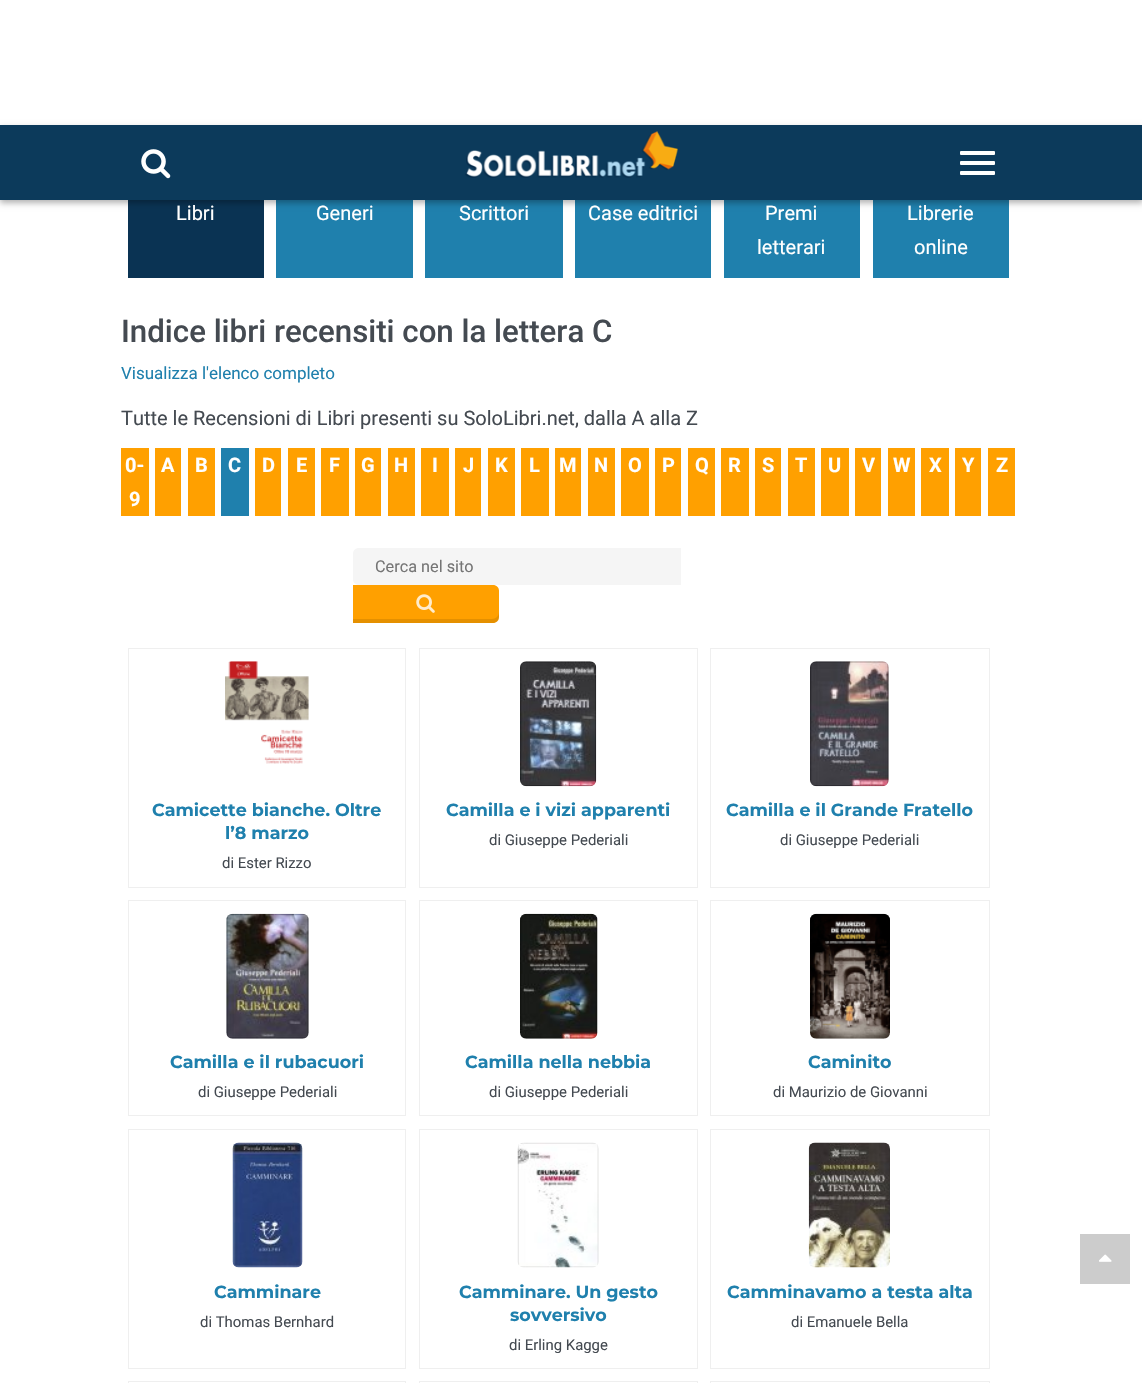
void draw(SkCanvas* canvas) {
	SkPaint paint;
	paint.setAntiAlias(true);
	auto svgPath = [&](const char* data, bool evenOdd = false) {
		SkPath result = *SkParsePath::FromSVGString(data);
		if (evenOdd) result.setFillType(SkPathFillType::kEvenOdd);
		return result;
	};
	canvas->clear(0xffffffff);
	paint.setColor(0xff0a3353);
	canvas->drawRect(SkRect::MakeXYWH(128, 200, 136, 78), paint);
	paint.setColor(0xff1f80ad);
	canvas->drawRect(SkRect::MakeXYWH(276, 200, 137, 78), paint);
	canvas->drawRect(SkRect::MakeXYWH(425, 200, 138, 78), paint);
	canvas->drawRect(SkRect::MakeXYWH(575, 200, 136, 78), paint);
	canvas->drawRect(SkRect::MakeXYWH(724, 200, 136, 78), paint);
	canvas->drawRect(SkRect::MakeXYWH(873, 200, 136, 78), paint);
	paint.setColor(0x4d000000);
	paint.setMaskFilter(SkMaskFilter::MakeBlur(kNormal_SkBlurStyle, 3));
	canvas->drawRect(SkRect::MakeXYWH(0, 128, 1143, 75), paint);
	paint.setMaskFilter(nullptr);
	paint.setColor(0xff0c3a5b);
	canvas->drawRect(SkRect::MakeXYWH(0, 125, 1142, 75), paint);
	canvas->drawImageRect(SkImages::DeferredFromEncodedData(SkData::MakeFromFileName("img1.png")), SkRect::MakeXYWH(141, 149, 30, 30), SkSamplingOptions());
	canvas->drawImageRect(SkImages::DeferredFromEncodedData(SkData::MakeFromFileName("img2.png")), SkRect::MakeXYWH(465, 131, 213, 47), SkSamplingOptions());
	paint.setColor(0xffffffff);
	canvas->drawRoundRect(SkRect::MakeXYWH(960, 151, 35, 4), 1, 1, paint);
	canvas->drawRoundRect(SkRect::MakeXYWH(960, 161, 35, 4), 1, 1, paint);
	canvas->drawRoundRect(SkRect::MakeXYWH(960, 171, 35, 4), 1, 1, paint);
	SkFont f1(fontMgr->matchFamilyStyle("Roboto", SkFontStyle::Normal()), 20);
	f1.setSubpixel(true);
	canvas->drawString("Libri", 176, 220, f1, paint);
	canvas->drawString("Generi", 316, 220, f1, paint);
	canvas->drawString("Scrittori", 459, 220, f1, paint);
	canvas->drawString("Case editrici", 588, 220, f1, paint);
	canvas->drawString("Premi", 765, 220, f1, paint);
	canvas->drawString("letterari", 757, 254, f1, paint);
	canvas->drawString("Librerie", 907, 220, f1, paint);
	canvas->drawString("online", 914, 254, f1, paint);
	SkFont f2(fontMgr->matchFamilyStyle("Roboto", SkFontStyle(500, SkFontStyle::kNormal_Width, SkFontStyle::kUpright_Slant)), 31.25);
	f2.setSubpixel(true);
	paint.setColor(0xff444a51);
	canvas->drawString("Indice libri recensiti con la lettera C", 121, 342, f2, paint);
	SkFont f3(fontMgr->matchFamilyStyle("Roboto", SkFontStyle::Normal()), 17);
	f3.setSubpixel(true);
	paint.setColor(0xff1f80ad);
	canvas->drawString("Visualizza l'elenco completo", 121, 379, f3, paint);
	paint.setColor(0xff444a51);
	canvas->drawString("Tutte le Recensioni di Libri presenti su SoloLibri.net, dalla A alla Z", 121, 425, f1, paint);
	paint.setColor(0xffffa000);
	canvas->drawRect(SkRect::MakeXYWH(121, 448, 28, 68), paint);
	SkFont f4(fontMgr->matchFamilyStyle("Roboto", SkFontStyle::Bold()), 20);
	f4.setSubpixel(true);
	paint.setColor(0xffffffff);
	canvas->drawString("0-", 125, 472, f4, paint);
	canvas->drawString("9", 129, 506, f4, paint);
	paint.setColor(0xffffa000);
	canvas->drawRect(SkRect::MakeXYWH(155, 448, 26, 68), paint);
	paint.setColor(0xffffffff);
	canvas->drawString("A", 161, 472, f4, paint);
	paint.setColor(0xffffa000);
	canvas->drawRect(SkRect::MakeXYWH(188, 448, 27, 68), paint);
	paint.setColor(0xffffffff);
	canvas->drawString("B", 195, 472, f4, paint);
	paint.setColor(0xff1f80ad);
	canvas->drawRect(SkRect::MakeXYWH(221, 448, 28, 68), paint);
	paint.setColor(0xffffffff);
	canvas->drawString("C", 228, 472, f4, paint);
	paint.setColor(0xffffa000);
	canvas->drawRect(SkRect::MakeXYWH(255, 448, 26, 68), paint);
	paint.setColor(0xffffffff);
	canvas->drawString("D", 262, 472, f4, paint);
	paint.setColor(0xffffa000);
	canvas->drawRect(SkRect::MakeXYWH(288, 448, 27, 68), paint);
	paint.setColor(0xffffffff);
	canvas->drawString("E", 296, 472, f4, paint);
	paint.setColor(0xffffa000);
	canvas->drawRect(SkRect::MakeXYWH(321, 448, 28, 68), paint);
	paint.setColor(0xffffffff);
	canvas->drawString("F", 329, 472, f4, paint);
	paint.setColor(0xffffa000);
	canvas->drawRect(SkRect::MakeXYWH(355, 448, 26, 68), paint);
	paint.setColor(0xffffffff);
	canvas->drawString("G", 361, 472, f4, paint);
	paint.setColor(0xffffa000);
	canvas->drawRect(SkRect::MakeXYWH(388, 448, 27, 68), paint);
	paint.setColor(0xffffffff);
	canvas->drawString("H", 394, 472, f4, paint);
	paint.setColor(0xffffa000);
	canvas->drawRect(SkRect::MakeXYWH(421, 448, 28, 68), paint);
	paint.setColor(0xffffffff);
	canvas->drawString("I", 432, 472, f4, paint);
	paint.setColor(0xffffa000);
	canvas->drawRect(SkRect::MakeXYWH(455, 448, 26, 68), paint);
	paint.setColor(0xffffffff);
	canvas->drawString("J", 463, 472, f4, paint);
	paint.setColor(0xffffa000);
	canvas->drawRect(SkRect::MakeXYWH(488, 448, 27, 68), paint);
	paint.setColor(0xffffffff);
	canvas->drawString("K", 495, 472, f4, paint);
	paint.setColor(0xffffa000);
	canvas->drawRect(SkRect::MakeXYWH(521, 448, 28, 68), paint);
	paint.setColor(0xffffffff);
	canvas->drawString("L", 529, 472, f4, paint);
	paint.setColor(0xffffa000);
	canvas->drawRect(SkRect::MakeXYWH(555, 448, 26, 68), paint);
	paint.setColor(0xffffffff);
	canvas->drawString("M", 559, 472, f4, paint);
	paint.setColor(0xffffa000);
	canvas->drawRect(SkRect::MakeXYWH(588, 448, 27, 68), paint);
	paint.setColor(0xffffffff);
	canvas->drawString("N", 594, 472, f4, paint);
	paint.setColor(0xffffa000);
	canvas->drawRect(SkRect::MakeXYWH(621, 448, 28, 68), paint);
	paint.setColor(0xffffffff);
	canvas->drawString("O", 628, 472, f4, paint);
	paint.setColor(0xffffa000);
	canvas->drawRect(SkRect::MakeXYWH(655, 448, 26, 68), paint);
	paint.setColor(0xffffffff);
	canvas->drawString("P", 662, 472, f4, paint);
	paint.setColor(0xffffa000);
	canvas->drawRect(SkRect::MakeXYWH(688, 448, 27, 68), paint);
	paint.setColor(0xffffffff);
	canvas->drawString("Q", 695, 472, f4, paint);
	paint.setColor(0xffffa000);
	canvas->drawRect(SkRect::MakeXYWH(721, 448, 28, 68), paint);
	paint.setColor(0xffffffff);
	canvas->drawString("R", 728, 472, f4, paint);
	paint.setColor(0xffffa000);
	canvas->drawRect(SkRect::MakeXYWH(755, 448, 26, 68), paint);
	paint.setColor(0xffffffff);
	canvas->drawString("S", 762, 472, f4, paint);
	paint.setColor(0xffffa000);
	canvas->drawRect(SkRect::MakeXYWH(788, 448, 27, 68), paint);
	paint.setColor(0xffffffff);
	canvas->drawString("T", 795, 472, f4, paint);
	paint.setColor(0xffffa000);
	canvas->drawRect(SkRect::MakeXYWH(821, 448, 28, 68), paint);
	paint.setColor(0xffffffff);
	canvas->drawString("U", 828, 472, f4, paint);
	paint.setColor(0xffffa000);
	canvas->drawRect(SkRect::MakeXYWH(855, 448, 26, 68), paint);
	paint.setColor(0xffffffff);
	canvas->drawString("V", 862, 472, f4, paint);
	paint.setColor(0xffffa000);
	canvas->drawRect(SkRect::MakeXYWH(888, 448, 27, 68), paint);
	paint.setColor(0xffffffff);
	canvas->drawString("W", 893, 472, f4, paint);
	paint.setColor(0xffffa000);
	canvas->drawRect(SkRect::MakeXYWH(921, 448, 28, 68), paint);
	paint.setColor(0xffffffff);
	canvas->drawString("X", 929, 472, f4, paint);
	paint.setColor(0xffffa000);
	canvas->drawRect(SkRect::MakeXYWH(955, 448, 26, 68), paint);
	paint.setColor(0xffffffff);
	canvas->drawString("Y", 962, 472, f4, paint);
	paint.setColor(0xffffa000);
	canvas->drawRect(SkRect::MakeXYWH(988, 448, 27, 68), paint);
	paint.setColor(0xffffffff);
	canvas->drawString("Z", 996, 472, f4, paint);
	paint.setColor(0xfff5f5f5);
	canvas->drawPath(svgPath("M359 548H681V585H359C355.5 585 353 582.5 353 579V554C353 550.5 355.5 548 359 548Z"), paint);
	SkFont f5(fontMgr->matchFamilyStyle("Roboto", SkFontStyle::Normal()), 16.25);
	f5.setSubpixel(true);
	paint.setColor(0xff757575);
	canvas->drawString("Cerca nel sito", 375, 572, f5, paint);
	paint.setColor(0xffffa000);
	canvas->drawPath(svgPath("M353 585H493C496.5 585 499 587.5 499 591V617C499 620.5 496.5 623 493 623H353Z"), paint);
	paint.setColor(0x1a000000);
	canvas->drawPath(svgPath("M353 619V623H493C496 623 499 620 499 617V612C499 616 496 619 492 619Z"), paint);
	canvas->drawImageRect(SkImages::DeferredFromEncodedData(SkData::MakeFromFileName("img3.png")), SkRect::MakeXYWH(416, 594, 19, 19), SkSamplingOptions());
	paint.setStroke(true);
	paint.setStrokeWidth(1);
	paint.setColor(0xffefefef);
	canvas->drawRect(SkRect::MakeXYWH(128.5, 648.5, 277, 239), paint);
	canvas->drawImageRect(SkImages::DeferredFromEncodedData(SkData::MakeFromFileName("img4.png")), SkRect::MakeXYWH(225, 661, 84, 103), SkSamplingOptions());
	SkFont f6(fontMgr->matchFamilyStyle("Montserrat", SkFontStyle(100, SkFontStyle::kNormal_Width, SkFontStyle::kUpright_Slant)), 17.5);
	f6.setSubpixel(true);
	paint.setStroke(false);
	paint.setColor(0xff1f80ad);
	canvas->drawString("Camicette bianche. Oltre", 152, 816, f6, paint);
	canvas->drawString("l’8 marzo", 225, 839, f6, paint);
	SkFont f7(fontMgr->matchFamilyStyle("Roboto", SkFontStyle::Normal()), 14.9);
	f7.setSubpixel(true);
	paint.setColor(0xff444a51);
	canvas->drawString("di Ester Rizzo", 222, 868, f7, paint);
	paint.setStroke(true);
	paint.setColor(0xffefefef);
	canvas->drawRect(SkRect::MakeXYWH(419.5, 648.5, 278, 239), paint);
	canvas->drawImageRect(SkImages::DeferredFromEncodedData(SkData::MakeFromFileName("img5.png")), SkRect::MakeXYWH(520, 661, 77, 126), SkSamplingOptions());
	paint.setStroke(false);
	paint.setColor(0xff1f80ad);
	canvas->drawString("Camilla e i vizi apparenti", 446, 816, f6, paint);
	paint.setColor(0xff444a51);
	canvas->drawString("di Giuseppe Pederiali", 489, 845, f7, paint);
	paint.setStroke(true);
	paint.setColor(0xffefefef);
	canvas->drawRect(SkRect::MakeXYWH(710.5, 648.5, 279, 239), paint);
	canvas->drawImageRect(SkImages::DeferredFromEncodedData(SkData::MakeFromFileName("img6.png")), SkRect::MakeXYWH(810, 661, 79, 126), SkSamplingOptions());
	paint.setStroke(false);
	paint.setColor(0xff1f80ad);
	canvas->drawString("Camilla e il Grande Fratello", 726, 816, f6, paint);
	paint.setColor(0xff444a51);
	canvas->drawString("di Giuseppe Pederiali", 780, 845, f7, paint);
	paint.setStroke(true);
	paint.setColor(0xffefefef);
	canvas->drawRect(SkRect::MakeXYWH(128.5, 900.5, 277, 215), paint);
	canvas->drawImageRect(SkImages::DeferredFromEncodedData(SkData::MakeFromFileName("img7.png")), SkRect::MakeXYWH(226, 913, 83, 126), SkSamplingOptions());
	paint.setStroke(false);
	paint.setColor(0xff1f80ad);
	canvas->drawString("Camilla e il rubacuori", 170, 1068, f6, paint);
	paint.setColor(0xff444a51);
	canvas->drawString("di Giuseppe Pederiali", 198, 1097, f7, paint);
	paint.setStroke(true);
	paint.setColor(0xffefefef);
	canvas->drawRect(SkRect::MakeXYWH(419.5, 900.5, 278, 215), paint);
	canvas->drawImageRect(SkImages::DeferredFromEncodedData(SkData::MakeFromFileName("img8.png")), SkRect::MakeXYWH(520, 913, 78, 126), SkSamplingOptions());
	paint.setStroke(false);
	paint.setColor(0xff1f80ad);
	canvas->drawString("Camilla nella nebbia", 465, 1068, f6, paint);
	paint.setColor(0xff444a51);
	canvas->drawString("di Giuseppe Pederiali", 489, 1097, f7, paint);
	paint.setStroke(true);
	paint.setColor(0xffefefef);
	canvas->drawRect(SkRect::MakeXYWH(710.5, 900.5, 279, 215), paint);
	canvas->drawImageRect(SkImages::DeferredFromEncodedData(SkData::MakeFromFileName("img9.png")), SkRect::MakeXYWH(810, 913, 80, 126), SkSamplingOptions());
	paint.setStroke(false);
	paint.setColor(0xff1f80ad);
	canvas->drawString("Caminito", 808, 1068, f6, paint);
	paint.setColor(0xff444a51);
	canvas->drawString("di Maurizio de Giovanni", 773, 1097, f7, paint);
	paint.setStroke(true);
	paint.setColor(0xffefefef);
	canvas->drawRect(SkRect::MakeXYWH(128.5, 1129.5, 277, 239), paint);
	canvas->drawImageRect(SkImages::DeferredFromEncodedData(SkData::MakeFromFileName("img10.png")), SkRect::MakeXYWH(232, 1142, 71, 126), SkSamplingOptions());
	paint.setStroke(false);
	paint.setColor(0xff1f80ad);
	canvas->drawString("Camminare", 214, 1298, f6, paint);
	paint.setColor(0xff444a51);
	canvas->drawString("di Thomas Bernhard", 200, 1327, f7, paint);
	paint.setStroke(true);
	paint.setColor(0xffefefef);
	canvas->drawRect(SkRect::MakeXYWH(419.5, 1129.5, 278, 239), paint);
	canvas->drawImageRect(SkImages::DeferredFromEncodedData(SkData::MakeFromFileName("img11.png")), SkRect::MakeXYWH(517, 1142, 82, 126), SkSamplingOptions());
	paint.setStroke(false);
	paint.setColor(0xff1f80ad);
	canvas->drawString("Camminare. Un gesto", 459, 1298, f6, paint);
	canvas->drawString("sovversivo", 510, 1321, f6, paint);
	paint.setColor(0xff444a51);
	canvas->drawString("di Erling Kagge", 509, 1350, f7, paint);
	paint.setStroke(true);
	paint.setColor(0xffefefef);
	canvas->drawRect(SkRect::MakeXYWH(710.5, 1129.5, 279, 239), paint);
	canvas->drawImageRect(SkImages::DeferredFromEncodedData(SkData::MakeFromFileName("img12.png")), SkRect::MakeXYWH(808, 1142, 82, 126), SkSamplingOptions());
	paint.setStroke(false);
	paint.setColor(0xff1f80ad);
	canvas->drawString("Camminavamo a testa alta", 727, 1298, f6, paint);
	paint.setColor(0xff444a51);
	canvas->drawString("di Emanuele Bella", 791, 1327, f7, paint);
	paint.setStroke(true);
	paint.setColor(0xffefefef);
	canvas->drawRect(SkRect::MakeXYWH(128.5, 1381.5, 277, 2), paint);
	canvas->drawRect(SkRect::MakeXYWH(419.5, 1381.5, 278, 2), paint);
	canvas->drawRect(SkRect::MakeXYWH(710.5, 1381.5, 279, 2), paint);
	paint.setStroke(false);
	paint.setColor(0xffcccccc);
	canvas->drawRect(SkRect::MakeXYWH(1080, 1234, 50, 50), paint);
	canvas->drawImageRect(SkImages::DeferredFromEncodedData(SkData::MakeFromFileName("img13.png")), SkRect::MakeXYWH(1099, 1254, 13, 8), SkSamplingOptions());
}
